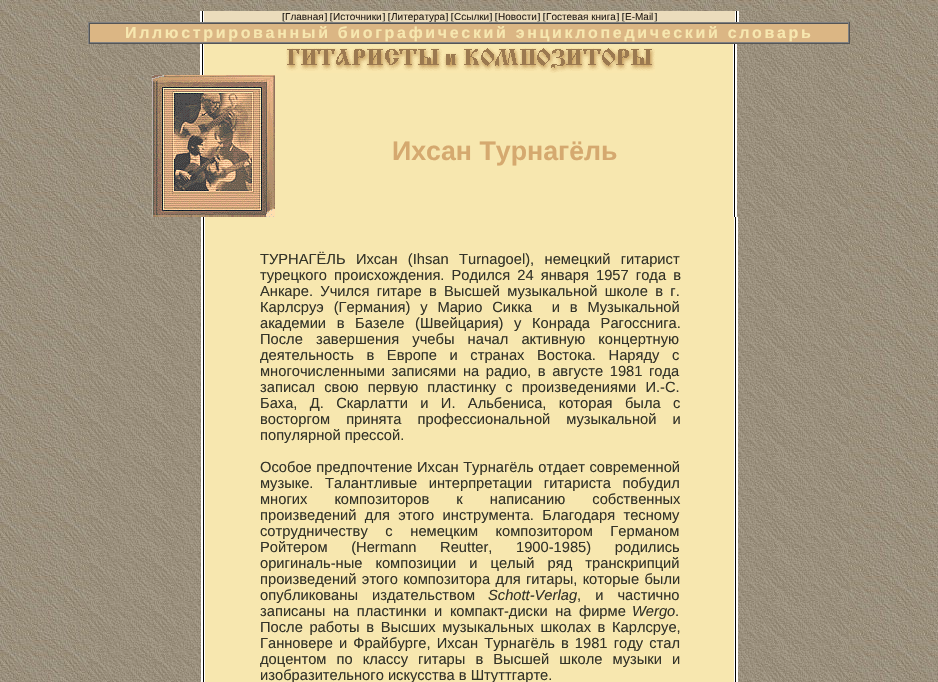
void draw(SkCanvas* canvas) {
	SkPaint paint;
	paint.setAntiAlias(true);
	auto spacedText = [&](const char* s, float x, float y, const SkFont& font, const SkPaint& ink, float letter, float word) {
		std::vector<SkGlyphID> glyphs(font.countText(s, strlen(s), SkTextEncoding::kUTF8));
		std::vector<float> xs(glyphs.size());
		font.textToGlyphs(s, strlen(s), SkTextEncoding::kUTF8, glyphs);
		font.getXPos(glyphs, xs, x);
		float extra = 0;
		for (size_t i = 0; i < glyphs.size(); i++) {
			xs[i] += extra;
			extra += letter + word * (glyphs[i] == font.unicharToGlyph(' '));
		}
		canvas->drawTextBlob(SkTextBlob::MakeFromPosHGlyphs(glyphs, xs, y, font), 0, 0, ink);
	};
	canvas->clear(0xffffffff);
	canvas->drawImageRect(SkImages::DeferredFromEncodedData(SkData::MakeFromFileName("img1.png")), SkRect::MakeXYWH(0, 0, 938, 682), SkSamplingOptions());
	canvas->drawImageRect(SkImages::DeferredFromEncodedData(SkData::MakeFromFileName("img2.png")), SkRect::MakeXYWH(88, 11, 116, 11), SkSamplingOptions());
	paint.setColor(0xffebdcbc);
	canvas->drawRect(SkRect::MakeXYWH(204, 11, 531, 11), paint);
	SkFont f1(fontMgr->matchFamilyStyle("Liberation Serif", SkFontStyle::Normal()), 10);
	f1.setSubpixel(true);
	paint.setColor(0xff000000);
	canvas->drawString("[", 282, 20, f1, paint);
	SkFont f2(fontMgr->matchFamilyStyle("Liberation Sans", SkFontStyle::Normal()), 10);
	f2.setSubpixel(true);
	paint.setColor(0xff271f17);
	canvas->drawString("Главная", 285, 20, f2, paint);
	paint.setColor(0xff000000);
	canvas->drawString("] [", 324, 20, f1, paint);
	paint.setColor(0xff271f17);
	canvas->drawString("Источники", 333, 20, f2, paint);
	paint.setColor(0xff000000);
	canvas->drawString("] [", 382, 20, f1, paint);
	paint.setColor(0xff808080);
	canvas->drawRect(SkRect::MakeXYWH(88, 22, 762, 1), paint);
	paint.setColor(0xff271f17);
	canvas->drawString("Литература", 391, 20, f2, paint);
	paint.setColor(0xff000000);
	canvas->drawString("] [", 445, 20, f1, paint);
	paint.setColor(0xff271f17);
	canvas->drawString("Ссылки", 454, 20, f2, paint);
	paint.setColor(0xff000000);
	canvas->drawString("] [", 489, 20, f1, paint);
	paint.setColor(0xff271f17);
	canvas->drawString("Новости", 498, 20, f2, paint);
	paint.setColor(0xff000000);
	canvas->drawString("] [", 537, 20, f1, paint);
	paint.setColor(0xff271f17);
	canvas->drawString("Гостевая книга", 546, 20, f2, paint);
	paint.setColor(0xff000000);
	canvas->drawString("] [", 616, 20, f1, paint);
	paint.setColor(0xff271f17);
	canvas->drawString("E-Mail", 625, 20, f2, paint);
	paint.setColor(0xff000000);
	canvas->drawString("]", 654, 20, f1, paint);
	canvas->drawImageRect(SkImages::DeferredFromEncodedData(SkData::MakeFromFileName("img3.png")), SkRect::MakeXYWH(735, 11, 115, 11), SkSamplingOptions());
	paint.setColor(0xff555555);
	canvas->drawRect(SkRect::MakeXYWH(849, 22, 1, 22), paint);
	canvas->drawRect(SkRect::MakeXYWH(88, 43, 762, 1), paint);
	paint.setColor(0xff808080);
	canvas->drawRect(SkRect::MakeXYWH(88, 22, 1, 22), paint);
	paint.setColor(0xffdbb684);
	canvas->drawRect(SkRect::MakeXYWH(90, 24, 758, 18), paint);
	paint.setColor(0xff555555);
	canvas->drawRect(SkRect::MakeXYWH(89, 23, 760, 1), paint);
	paint.setColor(0xff808080);
	canvas->drawRect(SkRect::MakeXYWH(848, 23, 1, 20), paint);
	canvas->drawRect(SkRect::MakeXYWH(89, 42, 760, 1), paint);
	paint.setColor(0xff555555);
	canvas->drawRect(SkRect::MakeXYWH(89, 23, 1, 20), paint);
	SkFont f3(fontMgr->matchFamilyStyle("Liberation Sans", SkFontStyle::Bold()), 16);
	f3.setSubpixel(true);
	paint.setColor(0xfff7e7af);
	spacedText("Иллюстрированный биографический энциклопедический словарь", 125, 38, f3, paint, 2.67, 0);
	canvas->drawImageRect(SkImages::DeferredFromEncodedData(SkData::MakeFromFileName("img4.png")), SkRect::MakeXYWH(88, 44, 116, 31), SkSamplingOptions());
	canvas->drawRect(SkRect::MakeXYWH(204, 44, 529, 31), paint);
	canvas->drawImageRect(SkImages::DeferredFromEncodedData(SkData::MakeFromFileName("img5.png")), SkRect::MakeXYWH(286, 48, 369, 25), SkSamplingOptions());
	canvas->drawImageRect(SkImages::DeferredFromEncodedData(SkData::MakeFromFileName("img6.png")), SkRect::MakeXYWH(733, 44, 115, 31), SkSamplingOptions());
	canvas->drawImageRect(SkImages::DeferredFromEncodedData(SkData::MakeFromFileName("img7.png")), SkRect::MakeXYWH(152, 75, 123, 142), SkSamplingOptions());
	canvas->drawRect(SkRect::MakeXYWH(275, 75, 458, 142), paint);
	SkFont f4(fontMgr->matchFamilyStyle("Liberation Sans", SkFontStyle::Bold()), 26.75);
	f4.setSubpixel(true);
	paint.setColor(0xffd5a96f);
	canvas->drawString("Ихсан Турнагёль", 392, 160, f4, paint);
	canvas->drawImageRect(SkImages::DeferredFromEncodedData(SkData::MakeFromFileName("img8.png")), SkRect::MakeXYWH(733, 75, 115, 142), SkSamplingOptions());
	canvas->drawImageRect(SkImages::DeferredFromEncodedData(SkData::MakeFromFileName("img9.png")), SkRect::MakeXYWH(89, 217, 116, 465), SkSamplingOptions());
	paint.setColor(0xfff7e7af);
	canvas->drawRect(SkRect::MakeXYWH(205, 217, 529, 465), paint);
	SkFont f5(fontMgr->matchFamilyStyle("Liberation Sans", SkFontStyle::Normal()), 14.7);
	f5.setSubpixel(true);
	paint.setColor(0xff333328);
	spacedText("ТУРНАГЁЛЬ Ихсан (Ihsan Turnagoel), немецкий гитарист", 260, 264, f5, paint, 0, 6.25);
	spacedText("турецкого происхождения. Родился 24 января 1957 года в", 260, 280, f5, paint, 0, 3);
	spacedText("Анкаре. Учился гитаре в Высшей музыкальной школе в г.", 260, 296, f5, paint, 0, 3.25);
	spacedText("Карлсруэ (Германия) у Марио Сикка  и в Музыкальной", 260, 312, f5, paint, 0, 5.75);
	spacedText("академии в Базеле (Швейцария) у Конрада Рагосснига.", 260, 328, f5, paint, 0, 6.5);
	spacedText("После завершения учебы начал активную концертную", 260, 344, f5, paint, 0, 9);
	spacedText("деятельность в Европе и странах Востока. Наряду с", 260, 360, f5, paint, 0, 8.5);
	spacedText("многочисленными записями на радио, в августе 1981 года", 260, 376, f5, paint, 0, 2.5);
	spacedText("записал свою первую пластинку с произведениями И.-С.", 260, 392, f5, paint, 0, 5);
	spacedText("Баха, Д. Скарлатти и И. Альбениса, которая была с", 260, 408, f5, paint, 0, 8.25);
	spacedText("восторгом принята профессиональной музыкальной и", 260, 424, f5, paint, 0, 12);
	canvas->drawString("популярной прессой.", 260, 440, f5, paint);
	spacedText("Особое предпочтение Ихсан Турнагёль отдает современной", 260, 472, f5, paint, 0, 0.5);
	spacedText("музыке. Талантливые интерпретации гитариста побудил", 260, 488, f5, paint, 0, 7.5);
	spacedText("многих композиторов к написанию собственных", 260, 504, f5, paint, 0, 23);
	spacedText("произведений для этого инструмента. Благодаря тесному", 260, 520, f5, paint, 0, 4.25);
	spacedText("сотрудничеству с немецким композитором Германом", 260, 536, f5, paint, 0, 13.5);
	spacedText("Ройтером (Hermann Reutter, 1900-1985) родились", 260, 552, f5, paint, 0, 19.5);
	spacedText("оригиналь-ные композиции и целый ряд транскрипций", 260, 568, f5, paint, 0, 9);
	spacedText("произведений этого композитора для гитары, которые были", 260, 584, f5, paint, 0, 1.25);
	spacedText("опубликованы издательством", 260, 600, f5, paint, 0, 10);
	SkFont f6(fontMgr->matchFamilyStyle("Liberation Sans", SkFontStyle::Italic()), 14.7);
	f6.setSubpixel(true);
	canvas->drawString("Schott-Verlag", 488, 600, f6, paint);
	spacedText(", и частично", 577, 600, f5, paint, 0, 10);
	spacedText("записаны на пластинки и компакт-диски на фирме", 260, 616, f5, paint, 0, 3.5);
	canvas->drawString("Wergo", 632, 616, f6, paint);
	canvas->drawString(".", 675, 616, f5, paint);
	spacedText("После работы в Высших музыкальных школах в Карлсруе,", 260, 632, f5, paint, 0, 2.5);
	spacedText("Ганновере и Фрайбурге, Ихсан Турнагёль в 1981 году стал", 260, 648, f5, paint, 0, 2);
	spacedText("доцентом по классу гитары в Высшей школе музыки и", 260, 664, f5, paint, 0, 6);
	canvas->drawString("изобразительного искусства в Штуттгарте.", 260, 680, f5, paint);
	canvas->drawImageRect(SkImages::DeferredFromEncodedData(SkData::MakeFromFileName("img10.png")), SkRect::MakeXYWH(734, 217, 115, 465), SkSamplingOptions());
}
